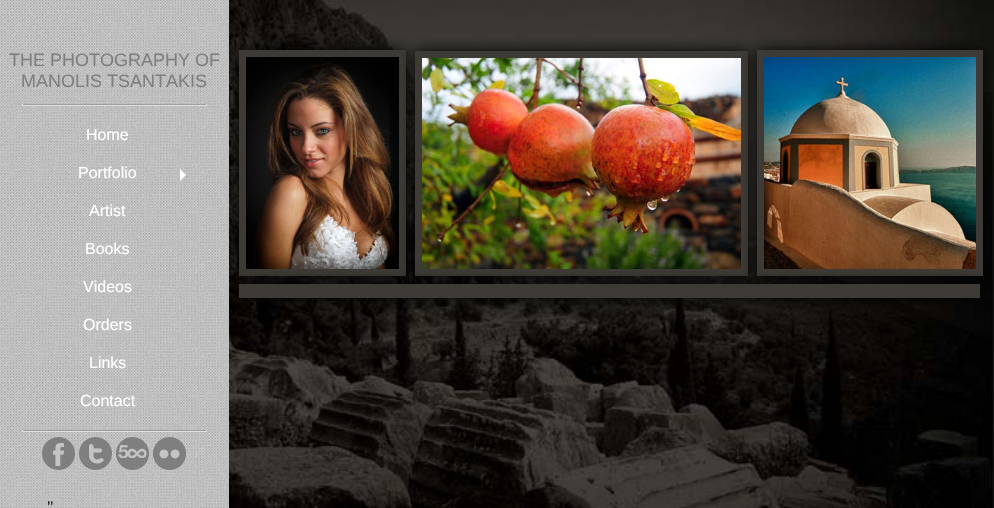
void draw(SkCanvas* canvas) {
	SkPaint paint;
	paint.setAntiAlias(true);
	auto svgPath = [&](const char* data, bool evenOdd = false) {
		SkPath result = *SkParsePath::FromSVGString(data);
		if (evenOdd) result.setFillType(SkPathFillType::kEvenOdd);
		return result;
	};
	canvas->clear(0xffffffff);
	canvas->drawImageRect(SkImages::DeferredFromEncodedData(SkData::MakeFromFileName("img1.png")), SkRect::MakeXYWH(229, 0, 765, 508), SkSamplingOptions());
	paint.setColor(0xff000000);
	paint.setMaskFilter(SkMaskFilter::MakeBlur(kNormal_SkBlurStyle, 7.5));
	canvas->drawRect(SkRect::MakeXYWH(239, 50, 167, 226), paint);
	paint.setMaskFilter(nullptr);
	paint.setStroke(true);
	paint.setStrokeWidth(7);
	paint.setColor(0xff3e3b36);
	canvas->drawRect(SkRect::MakeXYWH(242.5, 53.5, 160, 219), paint);
	canvas->drawImageRect(SkImages::DeferredFromEncodedData(SkData::MakeFromFileName("img7.png")), SkRect::MakeXYWH(246, 57, 153, 212), SkSamplingOptions());
	paint.setStroke(false);
	paint.setColor(0xff000000);
	paint.setMaskFilter(SkMaskFilter::MakeBlur(kNormal_SkBlurStyle, 7.5));
	canvas->drawRect(SkRect::MakeXYWH(415, 51, 333, 225), paint);
	paint.setMaskFilter(nullptr);
	paint.setStroke(true);
	paint.setColor(0xff3e3b36);
	canvas->drawRect(SkRect::MakeXYWH(418.5, 54.5, 326, 218), paint);
	canvas->drawImageRect(SkImages::DeferredFromEncodedData(SkData::MakeFromFileName("img8.png")), SkRect::MakeXYWH(422, 58, 319, 211), SkSamplingOptions());
	paint.setStroke(false);
	paint.setColor(0xff000000);
	paint.setMaskFilter(SkMaskFilter::MakeBlur(kNormal_SkBlurStyle, 7.5));
	canvas->drawRect(SkRect::MakeXYWH(757, 50, 226, 226), paint);
	paint.setMaskFilter(nullptr);
	paint.setStroke(true);
	paint.setColor(0xff3e3b36);
	canvas->drawRect(SkRect::MakeXYWH(760.5, 53.5, 219, 219), paint);
	canvas->drawImageRect(SkImages::DeferredFromEncodedData(SkData::MakeFromFileName("img9.png")), SkRect::MakeXYWH(764, 57, 212, 212), SkSamplingOptions());
	paint.setStroke(false);
	paint.setColor(0xff000000);
	paint.setMaskFilter(SkMaskFilter::MakeBlur(kNormal_SkBlurStyle, 7.5));
	canvas->drawRect(SkRect::MakeXYWH(239, 284, 741, 14), paint);
	paint.setMaskFilter(nullptr);
	canvas->drawImageRect(SkImages::DeferredFromEncodedData(SkData::MakeFromFileName("img2.png")), SkRect::MakeXYWH(0, 0, 229, 508), SkSamplingOptions());
	SkFont f1(fontMgr->matchFamilyStyle("Liberation Sans", SkFontStyle::Normal()), 18);
	f1.setSubpixel(true);
	paint.setColor(0xff807f7f);
	canvas->drawString("THE PHOTOGRAPHY OF", 9, 66, f1, paint);
	canvas->drawString("MANOLIS TSANTAKIS", 21, 87, f1, paint);
	paint.setColor(0xff9f9f9f);
	canvas->drawRect(SkRect::MakeXYWH(22, 104, 185, 1), paint);
	paint.setColor(0xffe2e1e1);
	canvas->drawRect(SkRect::MakeXYWH(206, 104, 1, 2), paint);
	canvas->drawRect(SkRect::MakeXYWH(22, 105, 185, 1), paint);
	canvas->drawRect(SkRect::MakeXYWH(22, 104, 1, 2), paint);
	SkFont f2(fontMgr->matchFamilyStyle("Liberation Sans", SkFontStyle::Normal()), 16);
	f2.setSubpixel(true);
	paint.setColor(0xffffffff);
	canvas->drawString("Home", 86, 140, f2, paint);
	canvas->drawString("Portfolio", 78, 178, f2, paint);
	canvas->drawPath(svgPath("M180 181V169L186 175Z"), paint);
	canvas->drawString("Artist", 89, 216, f2, paint);
	canvas->drawString("Books", 85, 254, f2, paint);
	canvas->drawString("Videos", 83, 292, f2, paint);
	canvas->drawString("Orders", 83, 330, f2, paint);
	canvas->drawString("Links", 89, 368, f2, paint);
	canvas->drawString("Contact", 80, 406, f2, paint);
	paint.setColor(0xff9f9f9f);
	canvas->drawRect(SkRect::MakeXYWH(22, 430, 185, 1), paint);
	paint.setColor(0xffe2e1e1);
	canvas->drawRect(SkRect::MakeXYWH(206, 430, 1, 2), paint);
	canvas->drawRect(SkRect::MakeXYWH(22, 431, 185, 1), paint);
	canvas->drawRect(SkRect::MakeXYWH(22, 430, 1, 2), paint);
	canvas->drawImageRect(SkImages::DeferredFromEncodedData(SkData::MakeFromFileName("img3.png")), SkRect::MakeXYWH(42, 437, 33, 33), SkSamplingOptions());
	canvas->drawImageRect(SkImages::DeferredFromEncodedData(SkData::MakeFromFileName("img4.png")), SkRect::MakeXYWH(79, 437, 33, 33), SkSamplingOptions());
	canvas->drawImageRect(SkImages::DeferredFromEncodedData(SkData::MakeFromFileName("img5.png")), SkRect::MakeXYWH(116, 437, 33, 33), SkSamplingOptions());
	canvas->drawImageRect(SkImages::DeferredFromEncodedData(SkData::MakeFromFileName("img6.png")), SkRect::MakeXYWH(153, 437, 33, 33), SkSamplingOptions());
	SkFont f3(fontMgr->matchFamilyStyle("Liberation Serif", SkFontStyle::Normal()), 16);
	f3.setSubpixel(true);
	paint.setColor(0xff121212);
	canvas->drawString("\"", 47, 512, f3, paint);
	paint.setColor(0xff3e3b36);
	canvas->drawRect(SkRect::MakeXYWH(239, 284, 741, 14), paint);
}
